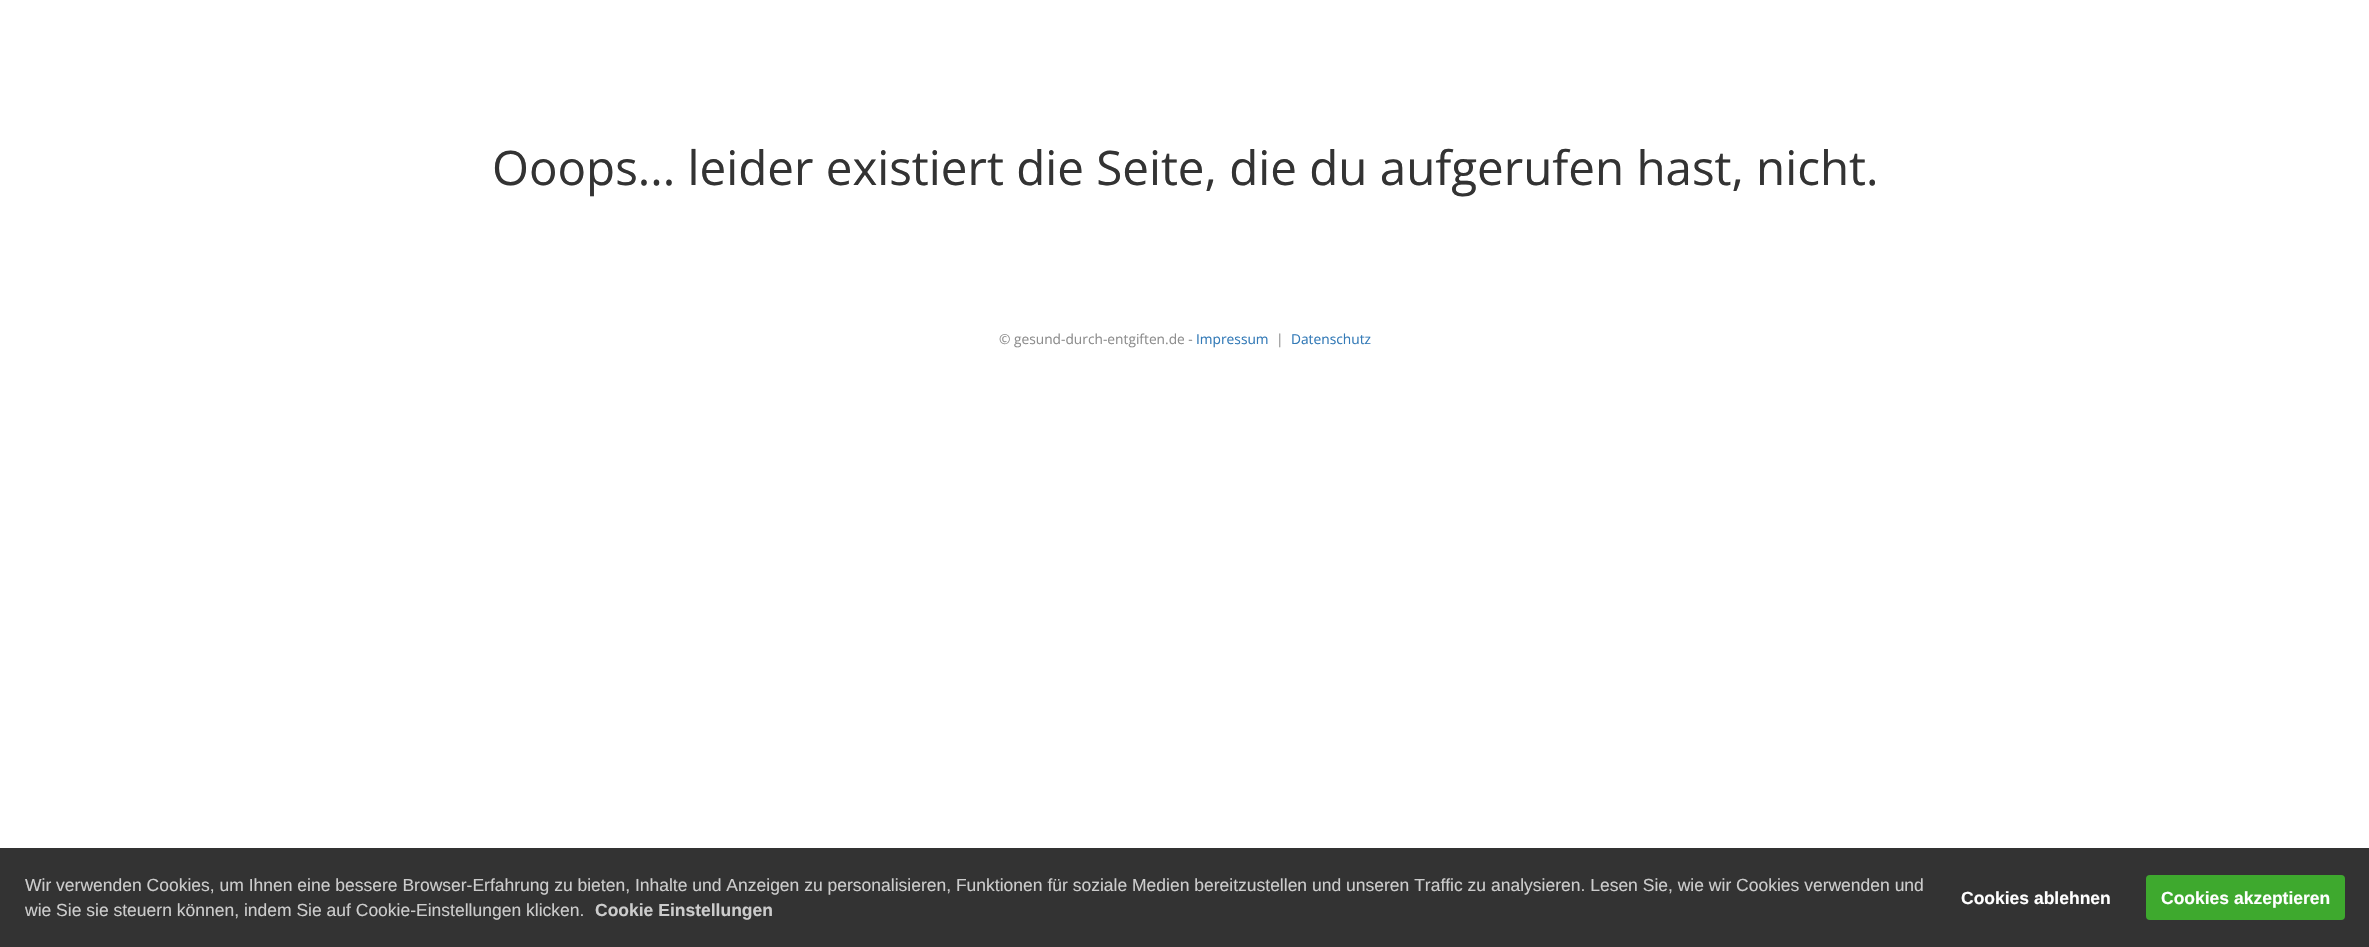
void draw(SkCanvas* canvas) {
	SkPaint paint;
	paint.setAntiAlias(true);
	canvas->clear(0xffffffff);
	SkFont f1(fontMgr->matchFamilyStyle("Open Sans", SkFontStyle::Normal()), 47.5);
	f1.setSubpixel(true);
	paint.setColor(0xff333333);
	canvas->drawString("Ooops... leider existiert die Seite, die du aufgerufen hast, nicht.", 492, 185, f1, paint);
	SkFont f2(fontMgr->matchFamilyStyle("Open Sans", SkFontStyle::Normal()), 13.75);
	f2.setSubpixel(true);
	paint.setColor(0xff8d8d8d);
	canvas->drawString("© gesund-durch-entgiften.de -", 999, 344, f2, paint);
	paint.setColor(0xff337ab7);
	canvas->drawString("Impressum", 1196, 344, f2, paint);
	paint.setColor(0xff8d8d8d);
	canvas->drawString("|", 1276, 344, f2, paint);
	paint.setColor(0xff337ab7);
	canvas->drawString("Datenschutz", 1291, 344, f2, paint);
	paint.setColor(0xff333333);
	canvas->drawRect(SkRect::MakeXYWH(0, 848, 2369, 99), paint);
	SkFont f3(fontMgr->matchFamilyStyle("Liberation Sans", SkFontStyle::Normal()), 17.5);
	f3.setSubpixel(true);
	paint.setColor(0xffcccccc);
	canvas->drawString("Wir verwenden Cookies, um Ihnen eine bessere Browser-Erfahrung zu bieten, Inhalte und Anzeigen zu personalisieren, Funktionen für soziale Medien bereitzustellen und unseren Traffic zu analysieren. Lesen Sie, wie wir Cookies verwenden und", 25, 891, f3, paint);
	canvas->drawString("wie Sie sie steuern können, indem Sie auf Cookie-Einstellungen klicken.", 25, 916, f3, paint);
	SkFont f4(fontMgr->matchFamilyStyle("Liberation Sans", SkFontStyle::Bold()), 17.5);
	f4.setSubpixel(true);
	canvas->drawString("Cookie Einstellungen", 595, 916, f4, paint);
	paint.setColor(0xffffffff);
	canvas->drawString("Cookies ablehnen", 1961, 904, f4, paint);
	paint.setColor(0xff3ea92e);
	canvas->drawRoundRect(SkRect::MakeXYWH(2146, 875, 199, 45), 4, 4, paint);
	paint.setColor(0xffffffff);
	canvas->drawString("Cookies akzeptieren", 2161, 904, f4, paint);
}
